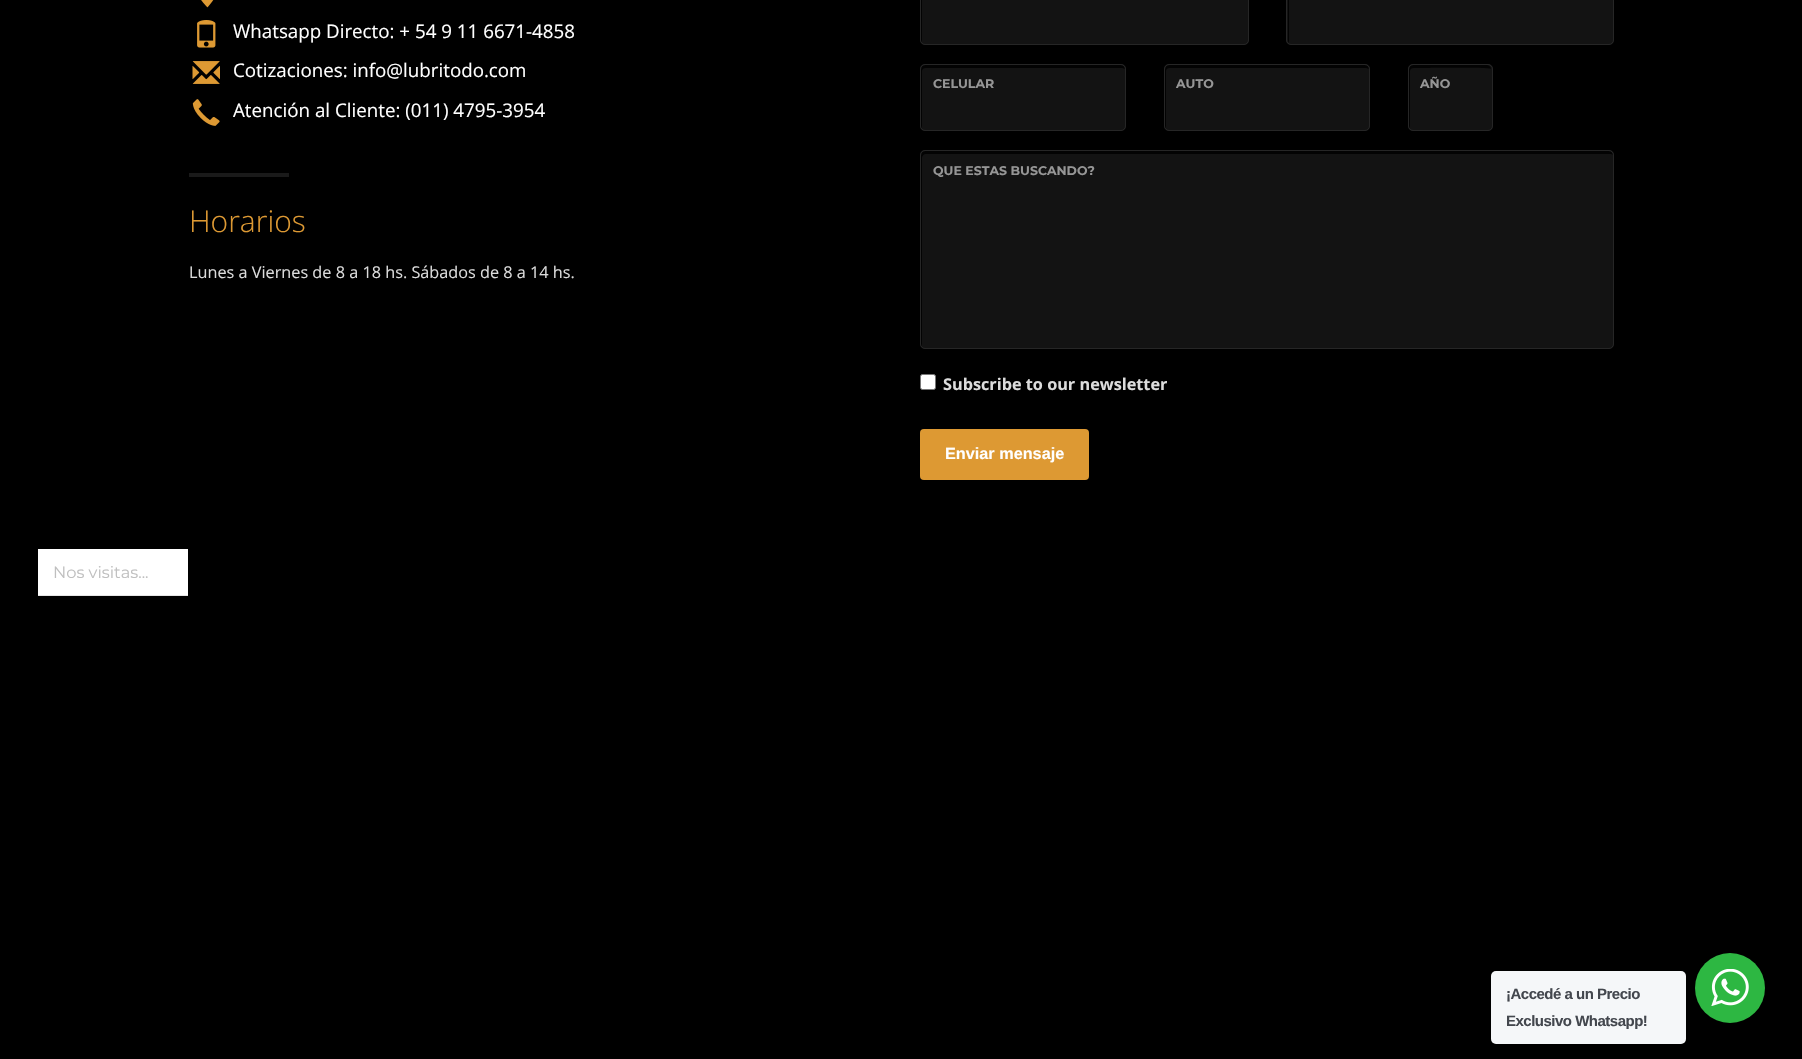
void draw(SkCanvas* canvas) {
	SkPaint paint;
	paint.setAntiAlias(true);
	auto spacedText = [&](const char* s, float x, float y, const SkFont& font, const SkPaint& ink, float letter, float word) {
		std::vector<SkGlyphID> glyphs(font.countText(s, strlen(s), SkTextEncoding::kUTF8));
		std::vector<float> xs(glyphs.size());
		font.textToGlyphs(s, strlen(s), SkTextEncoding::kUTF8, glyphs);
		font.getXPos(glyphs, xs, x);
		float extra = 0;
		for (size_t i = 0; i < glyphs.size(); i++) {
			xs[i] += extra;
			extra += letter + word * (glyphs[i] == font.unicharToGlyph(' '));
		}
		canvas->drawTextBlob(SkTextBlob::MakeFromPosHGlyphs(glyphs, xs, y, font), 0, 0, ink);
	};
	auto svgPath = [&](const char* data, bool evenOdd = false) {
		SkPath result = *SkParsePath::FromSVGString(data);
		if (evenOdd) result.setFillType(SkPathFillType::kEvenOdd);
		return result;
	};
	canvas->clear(0xff000000);
	canvas->drawImageRect(SkImages::DeferredFromEncodedData(SkData::MakeFromFileName("img1.png")), SkRect::MakeXYWH(201, 0, 13, 8), SkSamplingOptions());
	canvas->drawImageRect(SkImages::DeferredFromEncodedData(SkData::MakeFromFileName("img2.png")), SkRect::MakeXYWH(197, 20, 19, 28), SkSamplingOptions());
	SkFont f1(fontMgr->matchFamilyStyle("Open Sans", SkFontStyle::Normal()), 18.75);
	f1.setSubpixel(true);
	paint.setColor(0xffffffff);
	canvas->drawString("Whatsapp Directo: + 54 9 11 6671-4858", 233, 38, f1, paint);
	canvas->drawImageRect(SkImages::DeferredFromEncodedData(SkData::MakeFromFileName("img3.png")), SkRect::MakeXYWH(192, 61, 28, 23), SkSamplingOptions());
	canvas->drawString("Cotizaciones: info@lubritodo.com", 233, 77, f1, paint);
	canvas->drawImageRect(SkImages::DeferredFromEncodedData(SkData::MakeFromFileName("img4.png")), SkRect::MakeXYWH(192, 99, 28, 27), SkSamplingOptions());
	canvas->drawString("Atención al Cliente: (011) 4795-3954", 233, 117, f1, paint);
	paint.setColor(0xff1a1a1a);
	canvas->drawRect(SkRect::MakeXYWH(189, 173, 100, 4), paint);
	SkFont f2(fontMgr->matchFamilyStyle("Open Sans", SkFontStyle(300, SkFontStyle::kNormal_Width, SkFontStyle::kUpright_Slant)), 30);
	f2.setSubpixel(true);
	paint.setColor(0xffdd9933);
	canvas->drawString("Horarios", 189, 232, f2, paint);
	SkFont f3(fontMgr->matchFamilyStyle("Open Sans", SkFontStyle::Normal()), 16.25);
	f3.setSubpixel(true);
	paint.setColor(0xffdcdcdc);
	canvas->drawString("Lunes a Viernes de 8 a 18 hs. Sábados de 8 a 14 hs.", 189, 278, f3, paint);
	paint.setColor(0xff131313);
	canvas->drawRoundRect(SkRect::MakeXYWH(920, -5, 329, 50), 5, 5, paint);
	paint.setColor(0xff030303);
	canvas->drawPath(svgPath("M926-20H1245L1248-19C1248-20 1246-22 1244-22H925C923-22 921-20 921-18V40C921 41 921 42 922 43V-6C922-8 920-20 926-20Z"), paint);
	paint.setStroke(true);
	paint.setStrokeWidth(1);
	paint.setColor(0xff262626);
	canvas->drawRoundRect(SkRect::MakeXYWH(920.5, -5.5, 328, 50), 4.5, 4.5, paint);
	paint.setStroke(false);
	paint.setColor(0xff131313);
	canvas->drawRoundRect(SkRect::MakeXYWH(1286, -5, 328, 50), 5, 5, paint);
	paint.setColor(0xff030303);
	canvas->drawPath(svgPath("M1292-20H1610L1613-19C1613-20 1611-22 1609-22H1292C1290-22 1288-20 1288-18V40C1288 41 1288 42 1289 43V-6C1289-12 1287-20 1292-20Z"), paint);
	paint.setStroke(true);
	paint.setColor(0xff262626);
	canvas->drawRoundRect(SkRect::MakeXYWH(1286.5, -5.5, 327, 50), 4.5, 4.5, paint);
	paint.setStroke(false);
	paint.setColor(0xff131313);
	canvas->drawRoundRect(SkRect::MakeXYWH(920, 64, 206, 67), 5, 5, paint);
	paint.setColor(0xff030303);
	canvas->drawPath(svgPath("M926 68H1122L1125 69C1125 67 1123 65 1121 65H925C923 65 921 67 921 69V126C921 127 921 128 922 129V71C922 69 924 68 926 68Z"), paint);
	paint.setStroke(true);
	paint.setColor(0xff262626);
	canvas->drawRoundRect(SkRect::MakeXYWH(920.5, 64.5, 205, 66), 4.5, 4.5, paint);
	SkFont f4(fontMgr->matchFamilyStyle("Montserrat", SkFontStyle::Bold()), 12.5);
	f4.setSubpixel(true);
	paint.setStroke(false);
	paint.setColor(0xff969696);
	canvas->drawString("CELULAR", 933, 88, f4, paint);
	paint.setColor(0xff131313);
	canvas->drawRoundRect(SkRect::MakeXYWH(1164, 64, 206, 67), 5, 5, paint);
	paint.setColor(0xff030303);
	canvas->drawPath(svgPath("M1170 68H1366L1369 69C1369 67 1367 65 1365 65H1169C1167 65 1165 67 1165 69V126C1165 127 1165 128 1166 129V71C1166 69 1168 68 1170 68Z"), paint);
	paint.setStroke(true);
	paint.setColor(0xff262626);
	canvas->drawRoundRect(SkRect::MakeXYWH(1164.5, 64.5, 205, 66), 4.5, 4.5, paint);
	paint.setStroke(false);
	paint.setColor(0xff969696);
	canvas->drawString("AUTO", 1176, 88, f4, paint);
	paint.setColor(0xff131313);
	canvas->drawRoundRect(SkRect::MakeXYWH(1408, 64, 85, 67), 5, 5, paint);
	paint.setColor(0xff030303);
	canvas->drawPath(svgPath("M1414 68C1422 68 1489 67 1491 69C1491 67 1489 65 1487 65H1413C1411 65 1409 67 1409 69V126C1409 127 1409 128 1410 129V71C1410 69 1412 68 1414 68Z"), paint);
	paint.setStroke(true);
	paint.setColor(0xff262626);
	canvas->drawRoundRect(SkRect::MakeXYWH(1408.5, 64.5, 84, 66), 4.5, 4.5, paint);
	paint.setStroke(false);
	paint.setColor(0xff969696);
	canvas->drawString("AÑO", 1420, 88, f4, paint);
	paint.setColor(0xff131313);
	canvas->drawRoundRect(SkRect::MakeXYWH(920, 150, 694, 199), 5, 5, paint);
	paint.setColor(0xff030303);
	canvas->drawPath(svgPath("M926 154H1610C1611 154 1612 154 1613 155C1613 153 1611 151 1609 151H925C923 151 921 153 921 155V344C921 345 921 346 922 347V158C922 156 924 154 926 154Z"), paint);
	paint.setStroke(true);
	paint.setColor(0xff262626);
	canvas->drawRoundRect(SkRect::MakeXYWH(920.5, 150.5, 693, 198), 4.5, 4.5, paint);
	paint.setStroke(false);
	paint.setColor(0xff969696);
	canvas->drawString("QUE ESTAS BUSCANDO?", 933, 175, f4, paint);
	paint.setColor(0xffffffff);
	canvas->drawRoundRect(SkRect::MakeXYWH(920.5, 374.5, 15, 15), 2, 2, paint);
	paint.setStroke(true);
	paint.setColor(0xff767676);
	canvas->drawRoundRect(SkRect::MakeXYWH(920.5, 374.5, 15, 15), 2, 2, paint);
	SkFont f5(fontMgr->matchFamilyStyle("Open Sans", SkFontStyle::Bold()), 16.25);
	f5.setSubpixel(true);
	paint.setStroke(false);
	paint.setColor(0xffdcdcdc);
	canvas->drawString("Subscribe to our newsletter", 943, 390, f5, paint);
	paint.setColor(0xffdd9933);
	canvas->drawRoundRect(SkRect::MakeXYWH(920, 429, 169, 51), 4, 4, paint);
	SkFont f6(fontMgr->matchFamilyStyle("Liberation Sans", SkFontStyle::Bold()), 16.25);
	f6.setSubpixel(true);
	paint.setColor(0xffffffff);
	canvas->drawString("Enviar mensaje", 945, 459, f6, paint);
	canvas->drawRect(SkRect::MakeXYWH(38, 549, 150, 46), paint);
	paint.setColor(0xffe6e6e6);
	canvas->drawRect(SkRect::MakeXYWH(38, 595, 150, 1), paint);
	SkFont f7(fontMgr->matchFamilyStyle("Montserrat", SkFontStyle::Normal()), 16.25);
	f7.setSubpixel(true);
	paint.setColor(0xffbfbfbf);
	canvas->drawString("Nos visitas...", 53, 578, f7, paint);
	paint.setColor(0xfff5f7f9);
	canvas->drawRoundRect(SkRect::MakeXYWH(1491, 971, 195, 73), 5, 5, paint);
	SkFont f8(fontMgr->matchFamilyStyle("Liberation Sans", SkFontStyle::Bold()), 15);
	f8.setSubpixel(true);
	paint.setColor(0xff43474e);
	spacedText("¡Accedé a un Precio", 1506, 999, f8, paint, -0.5, 0);
	spacedText("Exclusivo Whatsapp!", 1506, 1026, f8, paint, -0.5, 0);
	paint.setColor(0xff2db742);
	canvas->drawCircle(1730, 988, 35, paint);
	canvas->drawImageRect(SkImages::DeferredFromEncodedData(SkData::MakeFromFileName("img5.png")), SkRect::MakeXYWH(1711, 969, 38, 37), SkSamplingOptions());
}
